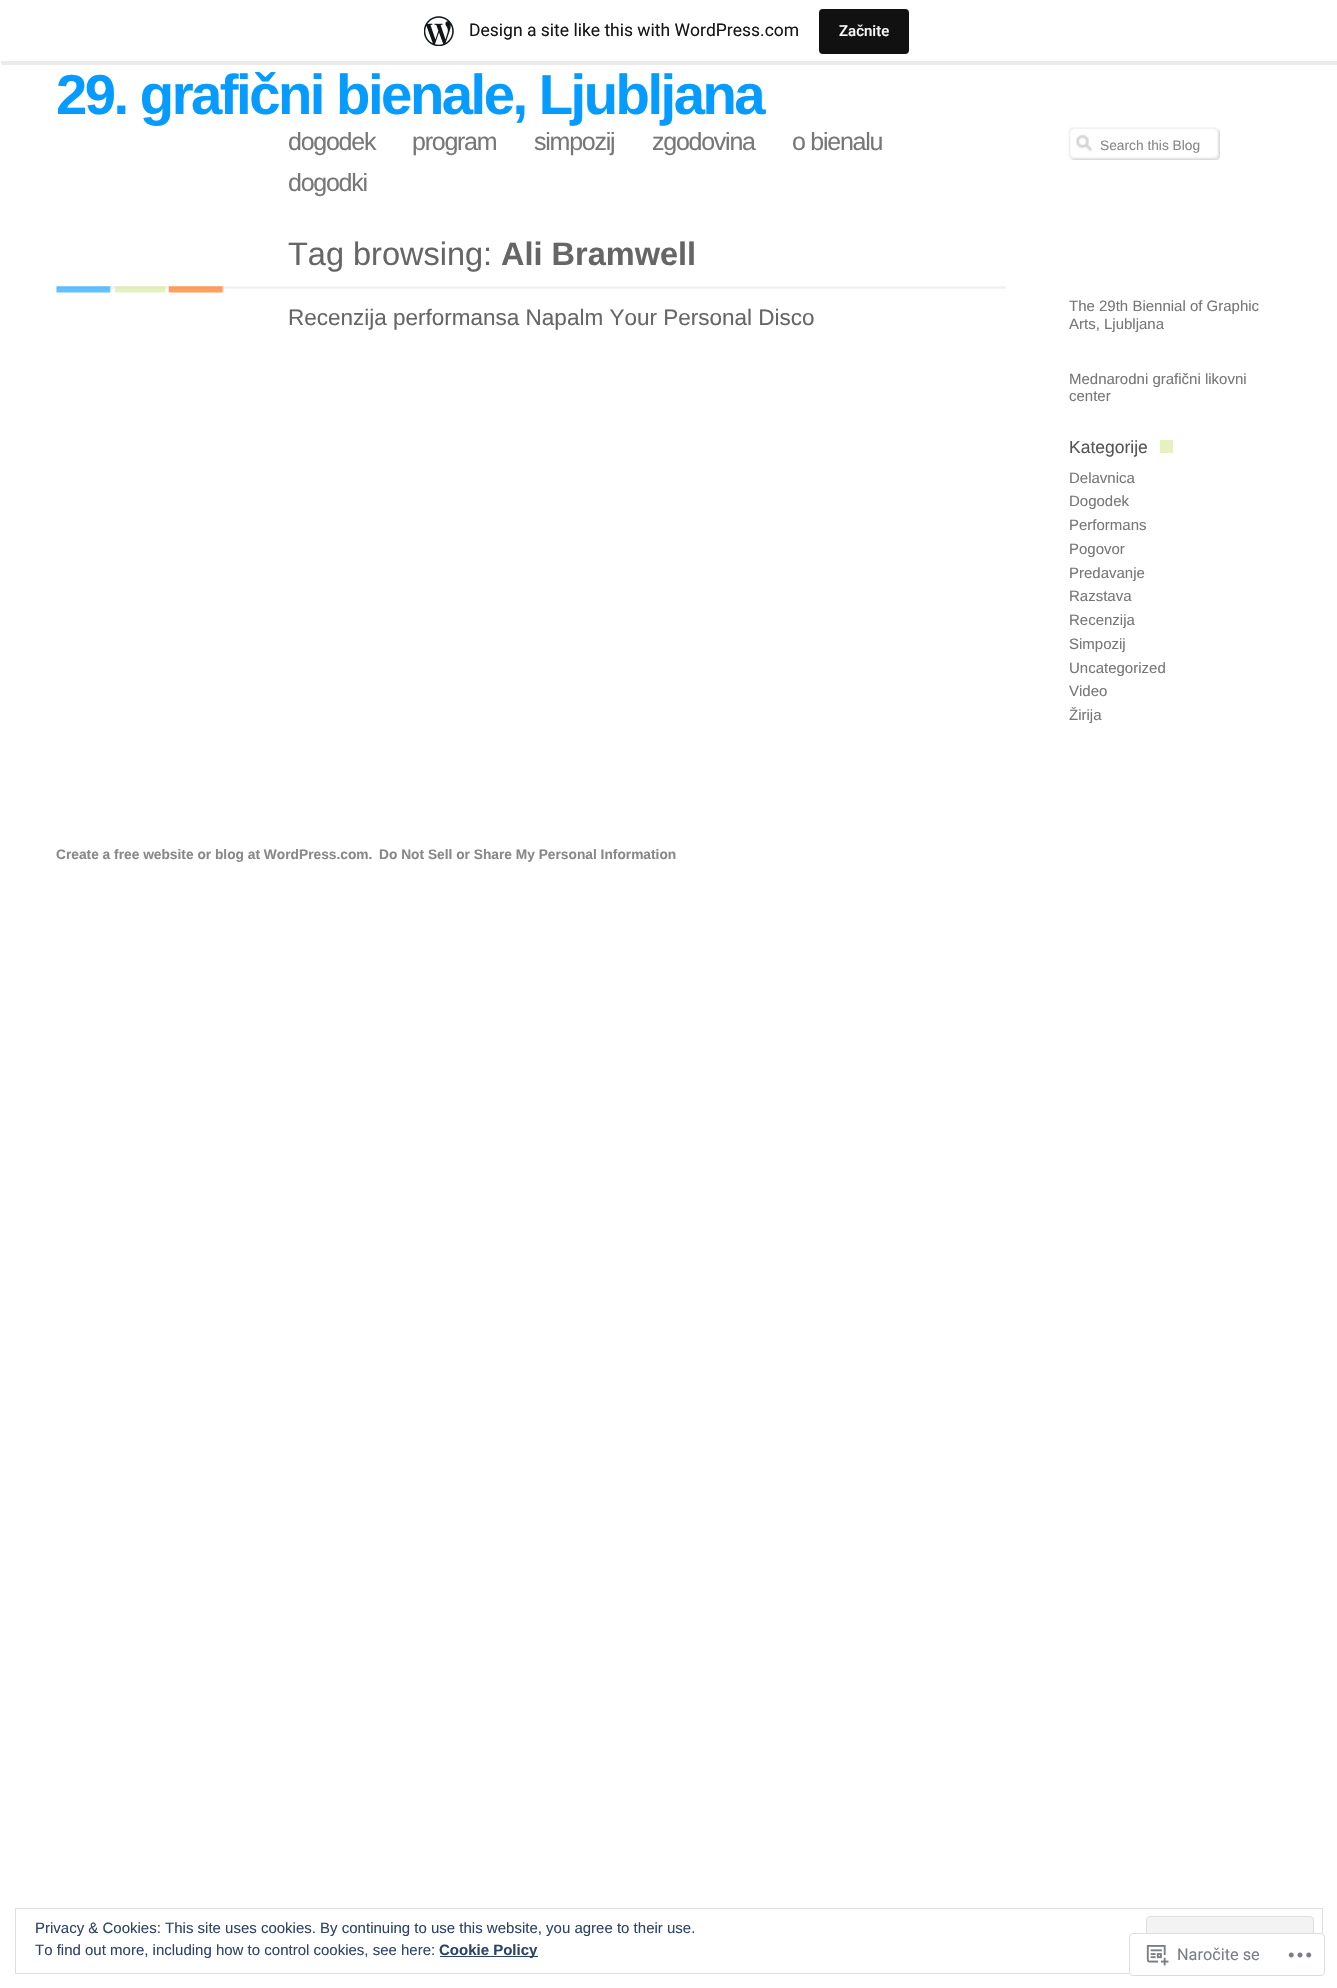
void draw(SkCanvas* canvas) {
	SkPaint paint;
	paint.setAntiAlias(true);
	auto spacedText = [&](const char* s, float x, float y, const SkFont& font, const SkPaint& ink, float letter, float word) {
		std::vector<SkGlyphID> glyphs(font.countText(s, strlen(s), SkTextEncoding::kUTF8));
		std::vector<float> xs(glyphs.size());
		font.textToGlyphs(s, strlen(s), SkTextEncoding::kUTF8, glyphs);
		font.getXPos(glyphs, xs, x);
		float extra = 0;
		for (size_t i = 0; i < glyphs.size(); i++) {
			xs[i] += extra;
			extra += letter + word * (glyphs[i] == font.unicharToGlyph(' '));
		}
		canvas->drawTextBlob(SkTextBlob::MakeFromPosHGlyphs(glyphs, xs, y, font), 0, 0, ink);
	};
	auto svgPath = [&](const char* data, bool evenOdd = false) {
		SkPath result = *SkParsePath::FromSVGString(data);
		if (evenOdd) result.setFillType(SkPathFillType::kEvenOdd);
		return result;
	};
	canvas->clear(0xffffffff);
	paint.setColor(0x14000000);
	canvas->drawPath(svgPath("M1 61V65H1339V4H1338V61Z"), paint);
	canvas->drawImageRect(SkImages::DeferredFromEncodedData(SkData::MakeFromFileName("img1.png")), SkRect::MakeXYWH(424, 16, 30, 30), SkSamplingOptions());
	SkFont f1(fontMgr->matchFamilyStyle("Roboto", SkFontStyle::Normal()), 17.5);
	f1.setSubpixel(true);
	paint.setColor(0xff171717);
	canvas->drawString("Design a site like this with WordPress.com", 469, 36, f1, paint);
	paint.setColor(0xff111111);
	canvas->drawRoundRect(SkRect::MakeXYWH(819, 9, 90, 45), 4, 4, paint);
	SkFont f2(fontMgr->matchFamilyStyle("Roboto", SkFontStyle(500, SkFontStyle::kNormal_Width, SkFontStyle::kUpright_Slant)), 15);
	f2.setSubpixel(true);
	paint.setColor(0xfff6f7f7);
	canvas->drawString("Začnite", 839, 36, f2, paint);
	SkFont f3(fontMgr->matchFamilyStyle("Liberation Sans", SkFontStyle::Bold()), 56.25);
	f3.setSubpixel(true);
	paint.setColor(0xff059bff);
	spacedText("29. grafični bienale, Ljubljana", 56, 114, f3, paint, -2.5, 0);
	SkFont f4(fontMgr->matchFamilyStyle("Liberation Sans", SkFontStyle::Normal()), 25);
	f4.setSubpixel(true);
	paint.setColor(0xff777777);
	spacedText("dogodek", 288, 150, f4, paint, -1.25, 0);
	spacedText("program", 412, 150, f4, paint, -1.25, 0);
	spacedText("simpozij", 534, 150, f4, paint, -1.25, 0);
	spacedText("zgodovina", 652, 150, f4, paint, -1.25, 0);
	spacedText("o bienalu", 792, 150, f4, paint, -1.25, 0);
	spacedText("dogodki", 288, 191, f4, paint, -1.25, 0);
	canvas->drawImageRect(SkImages::DeferredFromEncodedData(SkData::MakeFromFileName("img2.png")), SkRect::MakeXYWH(1068, 127, 152, 33), SkSamplingOptions());
	SkFont f5(fontMgr->matchFamilyStyle("Liberation Sans", SkFontStyle::Normal()), 13.75);
	f5.setSubpixel(true);
	paint.setColor(0xff888888);
	canvas->drawString("Search this Blog", 1100, 150, f5, paint);
	canvas->drawImageRect(SkImages::DeferredFromEncodedData(SkData::MakeFromFileName("img3.png")), SkRect::MakeXYWH(56, 286, 950, 7), SkSamplingOptions());
	SkFont f6(fontMgr->matchFamilyStyle("Liberation Sans", SkFontStyle::Normal()), 32.5);
	f6.setSubpixel(true);
	paint.setColor(0xff666666);
	canvas->drawString("Tag browsing:", 288, 265, f6, paint);
	SkFont f7(fontMgr->matchFamilyStyle("Liberation Sans", SkFontStyle::Bold()), 32.5);
	f7.setSubpixel(true);
	canvas->drawString("Ali Bramwell", 501, 265, f7, paint);
	SkFont f8(fontMgr->matchFamilyStyle("Liberation Sans", SkFontStyle::Normal()), 22.5);
	f8.setSubpixel(true);
	canvas->drawString("Recenzija performansa Napalm Your Personal Disco", 288, 325, f8, paint);
	SkFont f9(fontMgr->matchFamilyStyle("Liberation Sans", SkFontStyle::Normal()), 15);
	f9.setSubpixel(true);
	paint.setColor(0xff777777);
	canvas->drawString("The 29th Biennial of Graphic", 1069, 311, f9, paint);
	canvas->drawString("Arts, Ljubljana", 1069, 329, f9, paint);
	canvas->drawString("Mednarodni grafični likovni", 1069, 384, f9, paint);
	canvas->drawString("center", 1069, 401, f9, paint);
	SkFont f10(fontMgr->matchFamilyStyle("Liberation Sans", SkFontStyle::Normal()), 17.5);
	f10.setSubpixel(true);
	paint.setColor(0xff555555);
	canvas->drawString("Kategorije", 1069, 453, f10, paint);
	paint.setColor(0xffe5f2bf);
	canvas->drawRect(SkRect::MakeXYWH(1160, 440, 13, 13), paint);
	paint.setColor(0xff777777);
	canvas->drawString("Delavnica", 1069, 483, f9, paint);
	canvas->drawString("Dogodek", 1069, 506, f9, paint);
	canvas->drawString("Performans", 1069, 530, f9, paint);
	canvas->drawString("Pogovor", 1069, 554, f9, paint);
	canvas->drawString("Predavanje", 1069, 578, f9, paint);
	canvas->drawString("Razstava", 1069, 601, f9, paint);
	canvas->drawString("Recenzija", 1069, 625, f9, paint);
	canvas->drawString("Simpozij", 1069, 649, f9, paint);
	canvas->drawString("Uncategorized", 1069, 673, f9, paint);
	canvas->drawString("Video", 1069, 696, f9, paint);
	canvas->drawString("Žirija", 1069, 720, f9, paint);
	SkFont f11(fontMgr->matchFamilyStyle("Liberation Sans", SkFontStyle::Bold()), 13.75);
	f11.setSubpixel(true);
	paint.setColor(0xff888888);
	canvas->drawString("Create a free website or blog at WordPress.com.", 56, 859, f11, paint);
	canvas->drawString("Do Not Sell or Share My Personal Information", 379, 859, f11, paint);
	paint.setStroke(true);
	paint.setStrokeWidth(1);
	paint.setColor(0xffdedede);
	canvas->drawRect(SkRect::MakeXYWH(15.5, 1908.5, 1307, 65), paint);
	paint.setStroke(false);
	paint.setColor(0xff2e4467);
	canvas->drawString("Privacy & Cookies: This site uses cookies. By continuing to use this website, you agree to their use.", 35, 1933, f9, paint);
	paint.setColor(0xfff3f3f3);
	canvas->drawRoundRect(SkRect::MakeXYWH(1146.5, 1916.5, 167, 48), 3.5, 3.5, paint);
	paint.setStroke(true);
	paint.setColor(0xffdedede);
	canvas->drawRoundRect(SkRect::MakeXYWH(1146.5, 1916.5, 167, 48), 3.5, 3.5, paint);
	paint.setStroke(false);
	paint.setColor(0xff2e4467);
	canvas->drawString("To find out more, including how to control cookies, see here:", 35, 1955, f9, paint);
	canvas->drawRect(SkRect::MakeXYWH(440, 1956, 98, 1), paint);
	SkFont f12(fontMgr->matchFamilyStyle("Liberation Sans", SkFontStyle::Bold()), 15);
	f12.setSubpixel(true);
	canvas->drawString("Cookie Policy", 439, 1955, f12, paint);
	paint.setColor(0xfaffffff);
	canvas->drawRoundRect(SkRect::MakeXYWH(1129, 1933, 196, 43), 4, 4, paint);
	paint.setStroke(true);
	paint.setColor(0xfadcdcde);
	canvas->drawRoundRect(SkRect::MakeXYWH(1129.5, 1933.5, 195, 42), 3.5, 3.5, paint);
	canvas->drawImageRect(SkImages::DeferredFromEncodedData(SkData::MakeFromFileName("img4.png")), SkRect::MakeXYWH(1146, 1945, 23, 21), SkSamplingOptions());
	SkFont f13(fontMgr->matchFamilyStyle("Roboto", SkFontStyle::Normal()), 16.25);
	f13.setSubpixel(true);
	paint.setStroke(false);
	paint.setColor(0xff7a7e84);
	canvas->drawString("Naročite se", 1177, 1960, f13, paint);
	canvas->drawImageRect(SkImages::DeferredFromEncodedData(SkData::MakeFromFileName("img5.png")), SkRect::MakeXYWH(1288, 1952, 24, 6), SkSamplingOptions());
}
